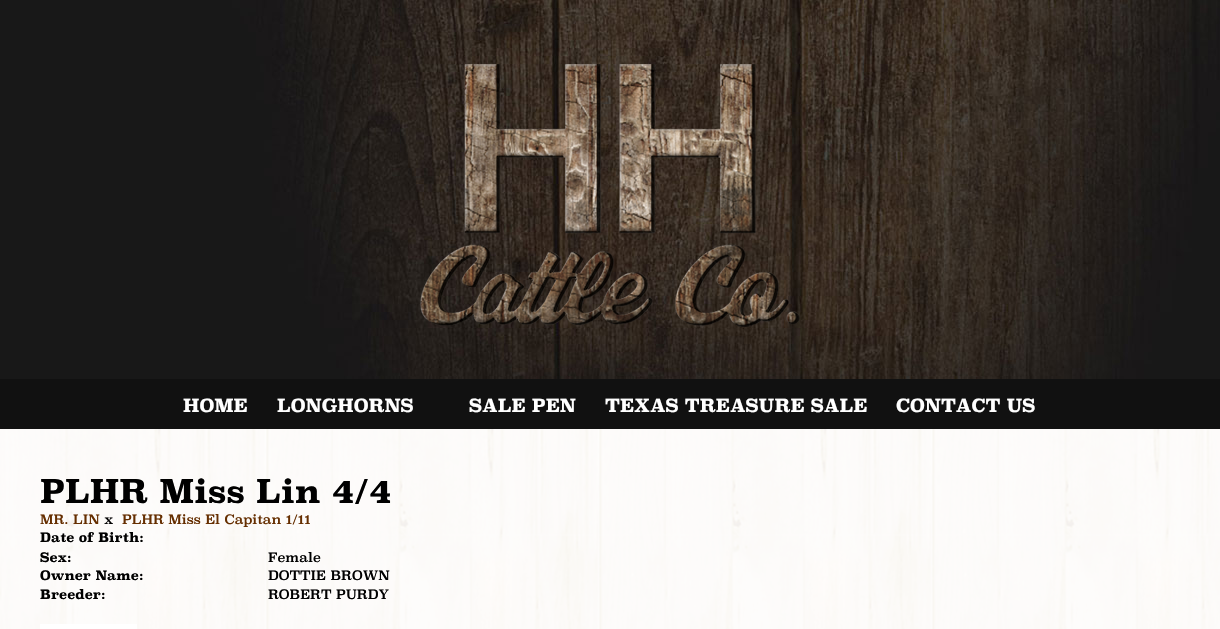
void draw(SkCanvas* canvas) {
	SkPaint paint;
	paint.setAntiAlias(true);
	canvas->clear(0xffffffff);
	canvas->drawImageRect(SkImages::DeferredFromEncodedData(SkData::MakeFromFileName("img1.png")), SkRect::MakeXYWH(0, 429, 1220, 200), SkSamplingOptions());
	canvas->drawImageRect(SkImages::DeferredFromEncodedData(SkData::MakeFromFileName("img2.png")), SkRect::MakeXYWH(0, 0, 1220, 379), SkSamplingOptions());
	canvas->drawImageRect(SkImages::DeferredFromEncodedData(SkData::MakeFromFileName("img3.png")), SkRect::MakeXYWH(420, 64, 380, 263), SkSamplingOptions());
	paint.setColor(0xff111111);
	canvas->drawRect(SkRect::MakeXYWH(0, 379, 1220, 50), paint);
	SkFont f1(fontMgr->matchFamilyStyle("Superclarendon", SkFontStyle::Bold()), 18);
	f1.setSubpixel(true);
	paint.setColor(0xffffffff);
	canvas->drawString("HOME", 183, 412, f1, paint);
	canvas->drawString("LONGHORNS", 277, 412, f1, paint);
	canvas->drawString("SALE PEN", 469, 412, f1, paint);
	canvas->drawString("TEXAS TREASURE SALE", 605, 412, f1, paint);
	canvas->drawString("CONTACT US", 896, 412, f1, paint);
	SkFont f2(fontMgr->matchFamilyStyle("Superclarendon", SkFontStyle::Bold()), 32.5);
	f2.setSubpixel(true);
	paint.setColor(0xff000000);
	canvas->drawString("PLHR Miss Lin 4/4", 40, 503, f2, paint);
	SkFont f3(fontMgr->matchFamilyStyle("Superclarendon", SkFontStyle::Normal()), 13);
	f3.setSubpixel(true);
	paint.setColor(0xff652e00);
	canvas->drawString("MR. LIN", 40, 524, f3, paint);
	paint.setColor(0xff000000);
	canvas->drawString("x", 104, 524, f3, paint);
	paint.setColor(0xff652e00);
	canvas->drawString("PLHR Miss El Capitan 1/11", 122, 524, f3, paint);
	SkFont f4(fontMgr->matchFamilyStyle("Superclarendon", SkFontStyle::Bold()), 13);
	f4.setSubpixel(true);
	paint.setColor(0xff000000);
	canvas->drawString("Date of Birth:", 40, 542, f4, paint);
	canvas->drawString("Sex:", 40, 562, f4, paint);
	canvas->drawString("Female", 268, 562, f3, paint);
	canvas->drawString("Owner Name:", 40, 580, f4, paint);
	canvas->drawString("DOTTIE BROWN", 268, 580, f3, paint);
	canvas->drawString("Breeder:", 40, 599, f4, paint);
	canvas->drawString("ROBERT PURDY", 268, 599, f3, paint);
	paint.setColor(0xffffffff);
	canvas->drawRect(SkRect::MakeXYWH(40, 624, 97, 5), paint);
}
